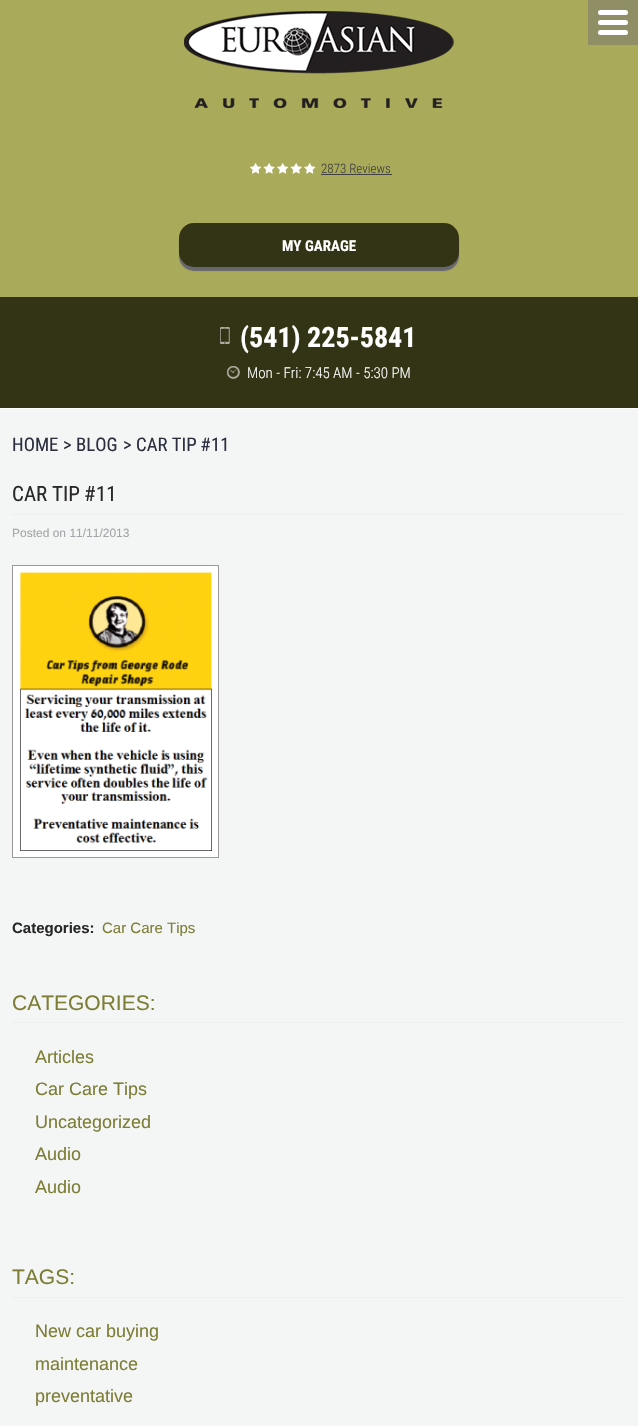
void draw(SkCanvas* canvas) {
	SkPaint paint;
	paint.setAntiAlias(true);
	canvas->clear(0xfff4f6f5);
	paint.setColor(0xffa9aa5a);
	canvas->drawRect(SkRect::MakeXYWH(0, 0, 638, 297), paint);
	paint.setColor(0xffffffff);
	canvas->drawRect(SkRect::MakeXYWH(0, 408, 638, 1), paint);
	paint.setColor(0xff908e64);
	canvas->drawRect(SkRect::MakeXYWH(588, 0, 50, 45), paint);
	paint.setColor(0xffffffff);
	canvas->drawRoundRect(SkRect::MakeXYWH(598, 20, 30, 5), 2.5, 2.5, paint);
	canvas->drawRoundRect(SkRect::MakeXYWH(598, 10, 30, 5), 2.5, 2.5, paint);
	canvas->drawRoundRect(SkRect::MakeXYWH(598, 30, 30, 5), 2.5, 2.5, paint);
	canvas->drawImageRect(SkImages::DeferredFromEncodedData(SkData::MakeFromFileName("img1.png")), SkRect::MakeXYWH(184, 11, 270, 97), SkSamplingOptions());
	canvas->drawImageRect(SkImages::DeferredFromEncodedData(SkData::MakeFromFileName("img2.png")), SkRect::MakeXYWH(250, 163, 66, 11), SkSamplingOptions());
	SkFont f1(fontMgr->matchFamilyStyle("Roboto Condensed", SkFontStyle(300, SkFontStyle::kNormal_Width, SkFontStyle::kUpright_Slant)), 13);
	f1.setSubpixel(true);
	paint.setColor(0xff404040);
	canvas->drawString("2873 Reviews", 321, 173, f1, paint);
	canvas->drawRect(SkRect::MakeXYWH(321, 174, 71, 1), paint);
	paint.setColor(0xff686770);
	paint.setMaskFilter(SkMaskFilter::MakeBlur(kNormal_SkBlurStyle, 0.5));
	canvas->drawRoundRect(SkRect::MakeXYWH(179, 227, 280, 44), 15, 15, paint);
	paint.setMaskFilter(nullptr);
	paint.setColor(0xff333315);
	canvas->drawRoundRect(SkRect::MakeXYWH(179, 223, 280, 44), 15, 15, paint);
	SkFont f2(fontMgr->matchFamilyStyle("Roboto Condensed", SkFontStyle::Bold()), 15);
	f2.setSubpixel(true);
	paint.setColor(0xffffffff);
	canvas->drawString("MY GARAGE", 282, 251, f2, paint);
	paint.setColor(0xff333315);
	canvas->drawRect(SkRect::MakeXYWH(0, 297, 638, 111), paint);
	canvas->drawImageRect(SkImages::DeferredFromEncodedData(SkData::MakeFromFileName("img3.png")), SkRect::MakeXYWH(220, 327, 10, 17), SkSamplingOptions());
	SkFont f3(fontMgr->matchFamilyStyle("Roboto Condensed", SkFontStyle::Bold()), 28);
	f3.setSubpixel(true);
	paint.setColor(0xffffffff);
	canvas->drawString("(541) 225-5841", 240, 347, f3, paint);
	canvas->drawImageRect(SkImages::DeferredFromEncodedData(SkData::MakeFromFileName("img4.png")), SkRect::MakeXYWH(227, 366, 13, 13), SkSamplingOptions());
	SkFont f4(fontMgr->matchFamilyStyle("Roboto Condensed", SkFontStyle(300, SkFontStyle::kNormal_Width, SkFontStyle::kUpright_Slant)), 15);
	f4.setSubpixel(true);
	canvas->drawString("Mon - Fri: 7:45 AM - 5:30 PM", 247, 378, f4, paint);
	SkFont f5(fontMgr->matchFamilyStyle("Roboto Condensed", SkFontStyle::Normal()), 18.75);
	f5.setSubpixel(true);
	paint.setColor(0xff2a2e3d);
	canvas->drawString("HOME", 12, 451, f5, paint);
	canvas->drawString(">", 63, 451, f5, paint);
	canvas->drawString("BLOG", 76, 451, f5, paint);
	canvas->drawString(">", 123, 451, f5, paint);
	canvas->drawString("CAR TIP #11", 136, 451, f5, paint);
	paint.setColor(0xffeeeeee);
	canvas->drawRect(SkRect::MakeXYWH(12, 514, 614, 1), paint);
	SkFont f6(fontMgr->matchFamilyStyle("Roboto Condensed", SkFontStyle::Normal()), 21);
	f6.setSubpixel(true);
	paint.setColor(0xff272727);
	canvas->drawString("CAR TIP #11", 12, 501, f6, paint);
	SkFont f7(fontMgr->matchFamilyStyle("Liberation Sans", SkFontStyle::Normal()), 12);
	f7.setSubpixel(true);
	paint.setColor(0xffa1a7a8);
	canvas->drawString("Posted on 11/11/2013", 12, 537, f7, paint);
	paint.setColor(0xffffffff);
	canvas->drawRect(SkRect::MakeXYWH(12.5, 565.5, 206, 292), paint);
	paint.setStroke(true);
	paint.setStrokeWidth(1);
	paint.setColor(0xff999999);
	canvas->drawRect(SkRect::MakeXYWH(12.5, 565.5, 206, 292), paint);
	canvas->drawImageRect(SkImages::DeferredFromEncodedData(SkData::MakeFromFileName("img5.png")), SkRect::MakeXYWH(20, 572, 192, 279), SkSamplingOptions());
	SkFont f8(fontMgr->matchFamilyStyle("Liberation Sans", SkFontStyle::Bold()), 15);
	f8.setSubpixel(true);
	paint.setStroke(false);
	paint.setColor(0xff272727);
	canvas->drawString("Categories:", 12, 933, f8, paint);
	SkFont f9(fontMgr->matchFamilyStyle("Liberation Sans", SkFontStyle::Normal()), 15);
	f9.setSubpixel(true);
	paint.setColor(0xff7d7d35);
	canvas->drawString("Car Care Tips", 102, 933, f9, paint);
	paint.setColor(0xffeeeeee);
	canvas->drawRect(SkRect::MakeXYWH(12, 1022, 614, 1), paint);
	SkFont f10(fontMgr->matchFamilyStyle("Liberation Sans", SkFontStyle::Normal()), 21);
	f10.setSubpixel(true);
	paint.setColor(0xff7d7d35);
	canvas->drawString("CATEGORIES:", 12, 1010, f10, paint);
	SkFont f11(fontMgr->matchFamilyStyle("Liberation Sans", SkFontStyle::Normal()), 18);
	f11.setSubpixel(true);
	canvas->drawString("Articles", 35, 1063, f11, paint);
	canvas->drawString("Car Care Tips", 35, 1095, f11, paint);
	canvas->drawString("Uncategorized", 35, 1128, f11, paint);
	canvas->drawString("Audio", 35, 1160, f11, paint);
	canvas->drawString("Audio", 35, 1193, f11, paint);
	paint.setColor(0xffeeeeee);
	canvas->drawRect(SkRect::MakeXYWH(12, 1297, 614, 1), paint);
	paint.setColor(0xff7d7d35);
	canvas->drawString("TAGS:", 12, 1284, f10, paint);
	canvas->drawString("New car buying", 35, 1337, f11, paint);
	canvas->drawString("maintenance", 35, 1370, f11, paint);
	canvas->drawString("preventative", 35, 1402, f11, paint);
}
